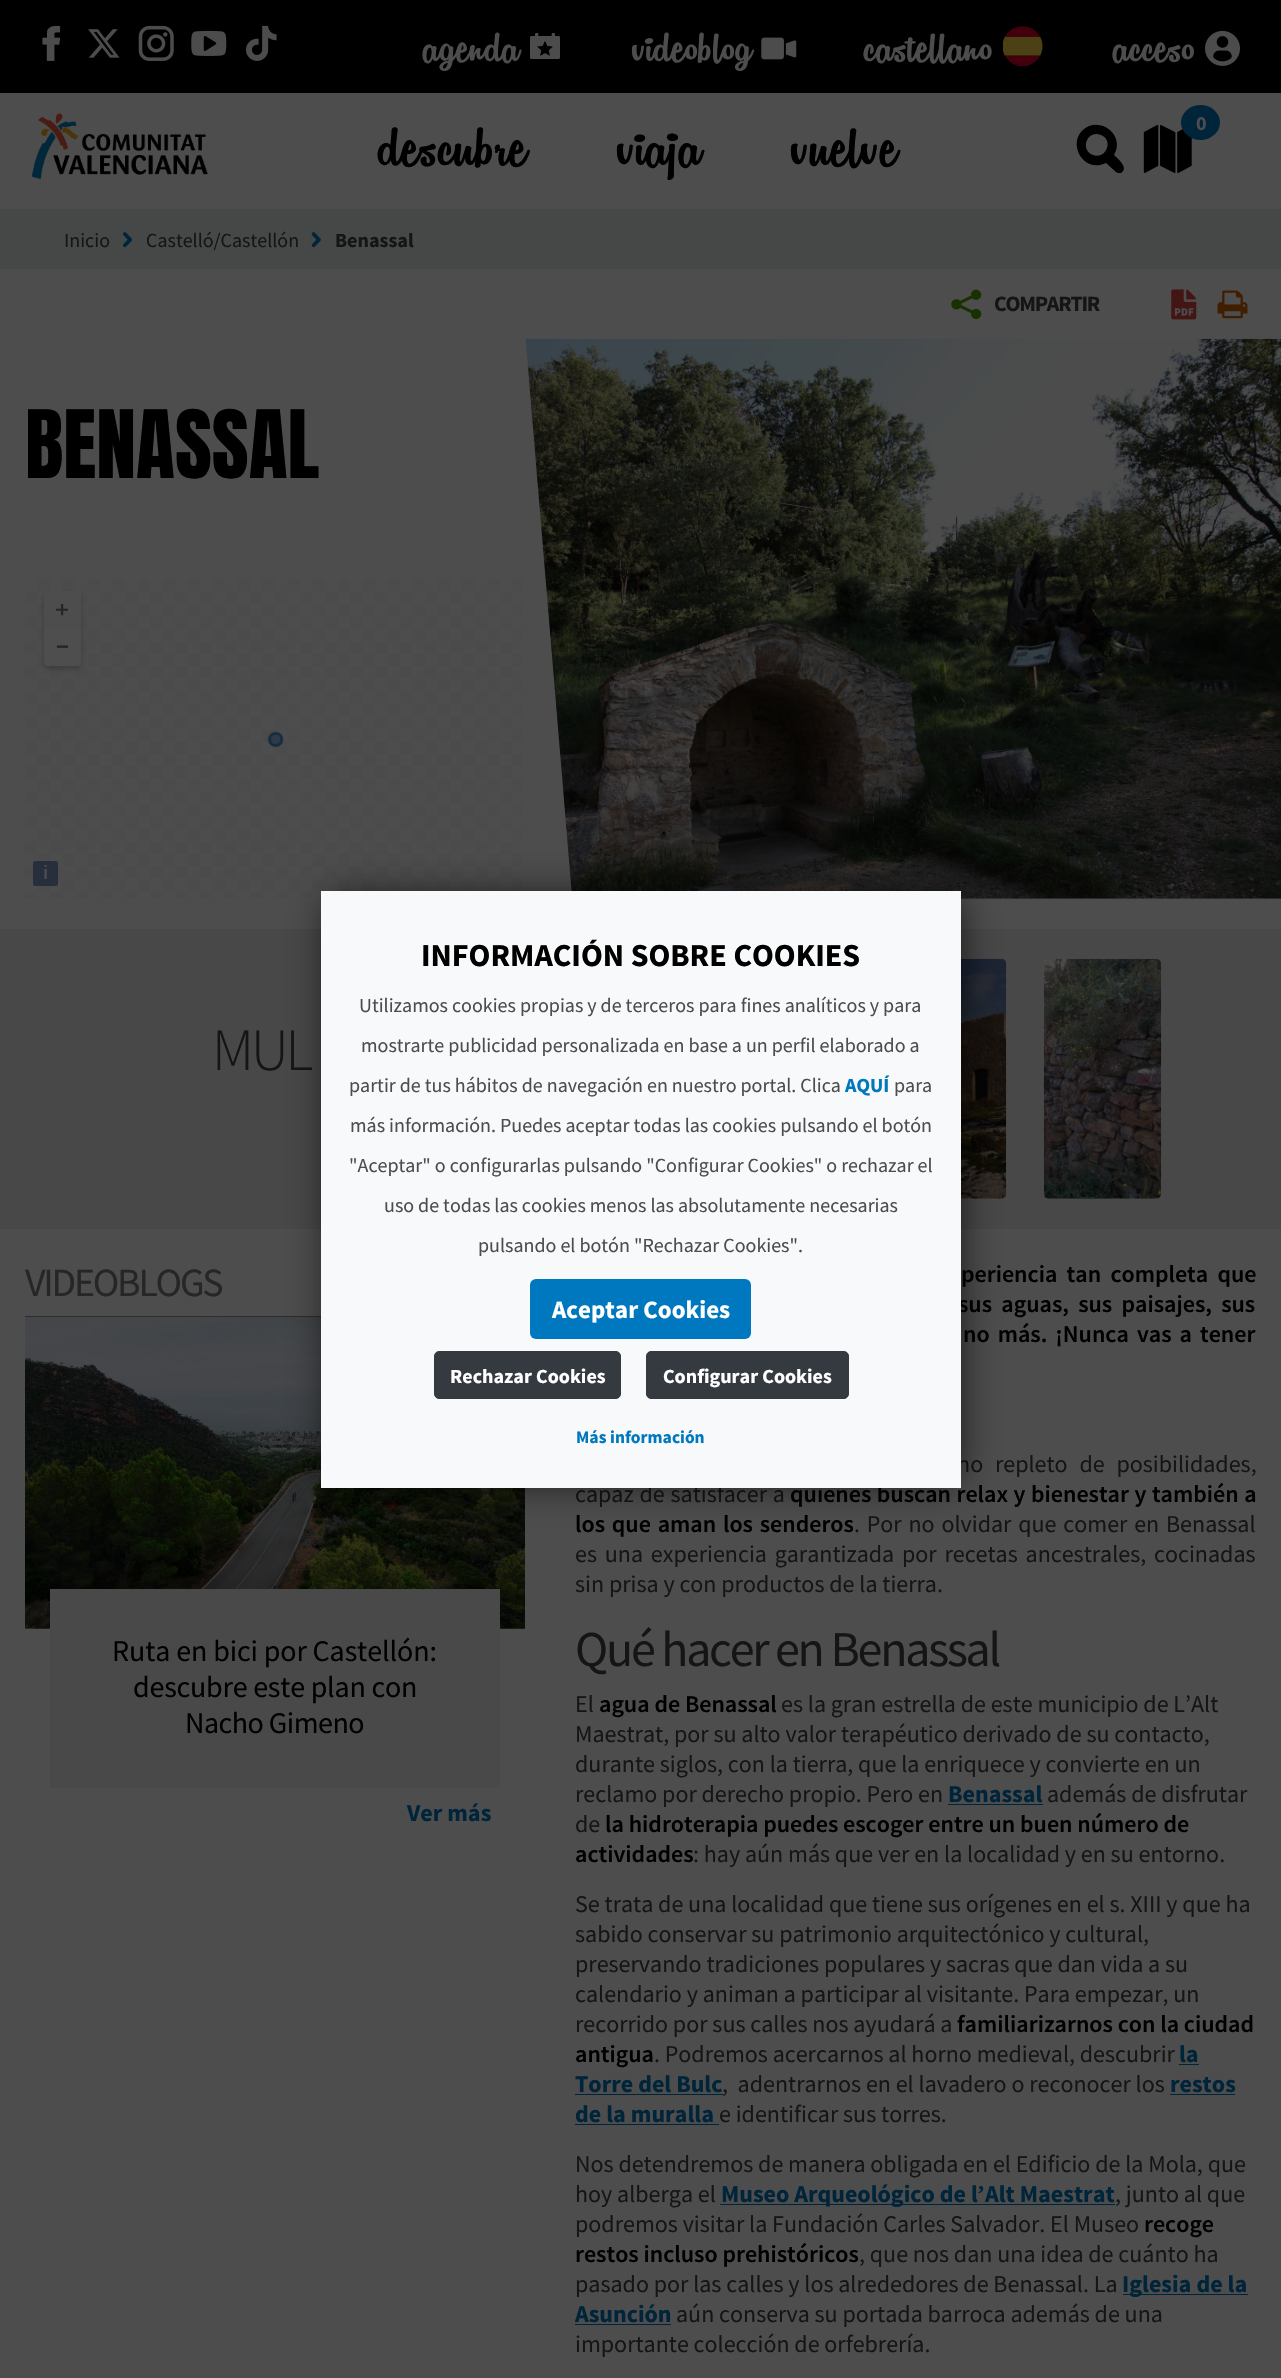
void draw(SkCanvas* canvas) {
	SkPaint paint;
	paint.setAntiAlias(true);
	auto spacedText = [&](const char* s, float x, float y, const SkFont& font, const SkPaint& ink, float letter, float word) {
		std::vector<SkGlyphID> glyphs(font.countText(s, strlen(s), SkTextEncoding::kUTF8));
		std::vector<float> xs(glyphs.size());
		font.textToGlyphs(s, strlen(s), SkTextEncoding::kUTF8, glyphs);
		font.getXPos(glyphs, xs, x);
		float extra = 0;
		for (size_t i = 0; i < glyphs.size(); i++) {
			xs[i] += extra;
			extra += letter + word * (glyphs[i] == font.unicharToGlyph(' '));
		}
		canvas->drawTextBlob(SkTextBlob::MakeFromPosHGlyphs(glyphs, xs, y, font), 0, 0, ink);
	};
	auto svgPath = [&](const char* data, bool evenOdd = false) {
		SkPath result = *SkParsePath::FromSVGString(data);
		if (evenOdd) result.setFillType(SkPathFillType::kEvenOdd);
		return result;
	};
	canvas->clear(0xff4d4d4d);
	paint.setColor(0xff000000);
	canvas->drawRect(SkRect::MakeXYWH(0, 0, 1281, 93), paint);
	canvas->drawImageRect(SkImages::DeferredFromEncodedData(SkData::MakeFromFileName("img1.png")), SkRect::MakeXYWH(42, 25, 19, 36), SkSamplingOptions());
	canvas->drawImageRect(SkImages::DeferredFromEncodedData(SkData::MakeFromFileName("img2.png")), SkRect::MakeXYWH(88, 29, 32, 29), SkSamplingOptions());
	canvas->drawImageRect(SkImages::DeferredFromEncodedData(SkData::MakeFromFileName("img3.png")), SkRect::MakeXYWH(138, 25, 36, 36), SkSamplingOptions());
	canvas->drawImageRect(SkImages::DeferredFromEncodedData(SkData::MakeFromFileName("img4.png")), SkRect::MakeXYWH(191, 30, 36, 26), SkSamplingOptions());
	canvas->drawImageRect(SkImages::DeferredFromEncodedData(SkData::MakeFromFileName("img5.png")), SkRect::MakeXYWH(245, 25, 32, 36), SkSamplingOptions());
	SkFont f1(fontMgr->matchFamilyStyle("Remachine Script", SkFontStyle::Normal()), 60);
	f1.setSubpixel(true);
	paint.setColor(0xff4d4d4d);
	canvas->drawString("agenda", 423, 61, f1, paint);
	canvas->drawImageRect(SkImages::DeferredFromEncodedData(SkData::MakeFromFileName("img6.png")), SkRect::MakeXYWH(530, 33, 30, 26), SkSamplingOptions());
	canvas->drawString("videoblog", 632, 61, f1, paint);
	canvas->drawImageRect(SkImages::DeferredFromEncodedData(SkData::MakeFromFileName("img7.png")), SkRect::MakeXYWH(761, 37, 36, 23), SkSamplingOptions());
	canvas->drawString("castellano", 864, 61, f1, paint);
	canvas->drawImageRect(SkImages::DeferredFromEncodedData(SkData::MakeFromFileName("img8.png")), SkRect::MakeXYWH(1003, 26, 40, 40), SkSamplingOptions());
	canvas->drawString("acceso", 1113, 61, f1, paint);
	canvas->drawImageRect(SkImages::DeferredFromEncodedData(SkData::MakeFromFileName("img9.png")), SkRect::MakeXYWH(1205, 30, 35, 36), SkSamplingOptions());
	canvas->drawImageRect(SkImages::DeferredFromEncodedData(SkData::MakeFromFileName("img10.png")), SkRect::MakeXYWH(31, 113, 177, 66), SkSamplingOptions());
	paint.setColor(0xff000000);
	canvas->drawPath(svgPath("M1093 155C1106 160 1114 140 1101 135C1088 129 1079 149 1093 155ZM1089 126C1107 120 1124 139 1114 155C1116 157 1130 168 1121 173C1119 173 1117 173 1116 172L1106 163C1081 175 1064 137 1089 126Z"), paint);
	canvas->drawImageRect(SkImages::DeferredFromEncodedData(SkData::MakeFromFileName("img11.png")), SkRect::MakeXYWH(1143, 125, 49, 48), SkSamplingOptions());
	paint.setColor(0xff002439);
	canvas->drawOval(SkRect::MakeXYWH(1181, 105, 39, 35), paint);
	SkFont f2(fontMgr->matchFamilyStyle("Source Sans Pro", SkFontStyle::Bold()), 20);
	f2.setSubpixel(true);
	paint.setColor(0xff4d4d4d);
	canvas->drawString("0", 1196, 130, f2, paint);
	SkFont f3(fontMgr->matchFamilyStyle("Remachine Script", SkFontStyle::Normal()), 80);
	f3.setSubpixel(true);
	paint.setColor(0xff000000);
	canvas->drawString("descubre", 378, 165, f3, paint);
	canvas->drawString("viaja", 617, 165, f3, paint);
	canvas->drawString("vuelve", 791, 165, f3, paint);
	paint.setColor(0xff464747);
	canvas->drawRect(SkRect::MakeXYWH(0, 209, 1281, 60), paint);
	SkFont f4(fontMgr->matchFamilyStyle("Source Sans Pro", SkFontStyle::Normal()), 20);
	f4.setSubpixel(true);
	paint.setColor(0xff151515);
	canvas->drawString("Inicio", 64, 247, f4, paint);
	canvas->drawImageRect(SkImages::DeferredFromEncodedData(SkData::MakeFromFileName("img12.png")), SkRect::MakeXYWH(123, 232, 9, 16), SkSamplingOptions());
	canvas->drawString("Castelló/Castellón", 146, 247, f4, paint);
	canvas->drawImageRect(SkImages::DeferredFromEncodedData(SkData::MakeFromFileName("img13.png")), SkRect::MakeXYWH(311, 232, 10, 16), SkSamplingOptions());
	canvas->drawString("Benassal", 335, 247, f2, paint);
	canvas->drawImageRect(SkImages::DeferredFromEncodedData(SkData::MakeFromFileName("img14.png")), SkRect::MakeXYWH(951, 289, 31, 31), SkSamplingOptions());
	SkFont f5(fontMgr->matchFamilyStyle("Source Sans Pro", SkFontStyle::Bold()), 22);
	f5.setSubpixel(true);
	spacedText("COMPARTIR", 994, 311, f5, paint, -1.25, 0);
	canvas->drawImageRect(SkImages::DeferredFromEncodedData(SkData::MakeFromFileName("img15.png")), SkRect::MakeXYWH(1171, 289, 26, 31), SkSamplingOptions());
	canvas->drawImageRect(SkImages::DeferredFromEncodedData(SkData::MakeFromFileName("img16.png")), SkRect::MakeXYWH(1217, 290, 31, 29), SkSamplingOptions());
	SkFont f6(fontMgr->matchFamilyStyle("Anton", SkFontStyle::Normal()), 80);
	f6.setSubpixel(true);
	paint.setColor(0xff000000);
	canvas->drawString("BENASSAL", 25, 478, f6, paint);
	canvas->drawImageRect(SkImages::DeferredFromEncodedData(SkData::MakeFromFileName("img17.png")), SkRect::MakeXYWH(25, 579, 497, 319), SkSamplingOptions());
	paint.setColor(0x33000000);
	paint.setMaskFilter(SkMaskFilter::MakeBlur(kNormal_SkBlurStyle, 2.5));
	canvas->drawRoundRect(SkRect::MakeXYWH(44, 594, 37, 75), 5, 5, paint);
	paint.setMaskFilter(nullptr);
	paint.setColor(0xff4d4d4d);
	canvas->drawRoundRect(SkRect::MakeXYWH(44, 591, 37, 75), 5, 5, paint);
	SkFont f7(fontMgr->matchFamilyStyle("Muli", SkFontStyle::BoldItalic()), 22);
	f7.setSubpixel(true);
	paint.setColor(0xff262626);
	canvas->drawString("+", 54, 616, f7, paint);
	paint.setColor(0xbf4d4d4d);
	canvas->drawPath(svgPath("M44 629H81V663.5C81 665 80 666 78.5 666H46.5C45 666 44 665 44 663.5Z"), paint);
	SkFont f8(fontMgr->matchFamilyStyle("Liberation Sans", SkFontStyle::Bold()), 22);
	f8.setSubpixel(true);
	paint.setColor(0xff262626);
	canvas->drawString("−", 56, 654, f8, paint);
	paint.setColor(0x80001229);
	canvas->drawRoundRect(SkRect::MakeXYWH(33, 861, 25, 25), 2.5, 2.5, paint);
	SkFont f9(fontMgr->matchFamilyStyle("Muli", SkFontStyle::BoldItalic()), 19);
	f9.setSubpixel(true);
	paint.setColor(0xff4d4d4d);
	canvas->drawString("i", 43, 879, f9, paint);
	canvas->drawImageRect(SkImages::DeferredFromEncodedData(SkData::MakeFromFileName("img18.png")), SkRect::MakeXYWH(267, 731, 17, 17), SkSamplingOptions());
	canvas->drawImageRect(SkImages::DeferredFromEncodedData(SkData::MakeFromFileName("img19.png")), SkRect::MakeXYWH(525, 338, 756, 561), SkSamplingOptions());
	canvas->save();
	canvas->clipRect(SkRect::MakeXYWH(0, 339, 1281, 560));
	canvas->drawPath(svgPath("M575 932H525V332Z"), paint);
	canvas->restore();
	paint.setColor(0xff484848);
	canvas->drawRect(SkRect::MakeXYWH(0, 929, 1281, 300), paint);
	SkFont f10(fontMgr->matchFamilyStyle("Source Sans Pro", SkFontStyle(300, SkFontStyle::kNormal_Width, SkFontStyle::kUpright_Slant)), 60);
	f10.setSubpixel(true);
	paint.setColor(0xff151515);
	spacedText("MUL", 212, 1070, f10, paint, -3, 0);
	canvas->drawImageRect(SkImages::DeferredFromEncodedData(SkData::MakeFromFileName("img20.png")), SkRect::MakeXYWH(961, 958, 46, 241), SkSamplingOptions());
	canvas->drawImageRect(SkImages::DeferredFromEncodedData(SkData::MakeFromFileName("img21.png")), SkRect::MakeXYWH(1043, 958, 119, 241), SkSamplingOptions());
	SkFont f11(fontMgr->matchFamilyStyle("Source Sans Pro", SkFontStyle::Normal()), 40);
	f11.setSubpixel(true);
	paint.setColor(0xff262626);
	spacedText("VIDEOBLOGS", 25, 1296, f11, paint, -2.25, 0);
	canvas->drawImageRect(SkImages::DeferredFromEncodedData(SkData::MakeFromFileName("img22.png")), SkRect::MakeXYWH(25, 1316, 500, 313), SkSamplingOptions());
	paint.setColor(0xff4a4949);
	canvas->drawRect(SkRect::MakeXYWH(50, 1589, 450, 199), paint);
	SkFont f12(fontMgr->matchFamilyStyle("Source Sans Pro", SkFontStyle::Normal()), 30);
	f12.setSubpixel(true);
	paint.setColor(0xff000000);
	spacedText("Ruta en bici por Castellón:", 112, 1661, f12, paint, -0.1, 0);
	spacedText("descubre este plan con", 133, 1697, f12, paint, -0.2, 0);
	spacedText("Nacho Gimeno", 185, 1733, f12, paint, -0.5, 0);
	SkFont f13(fontMgr->matchFamilyStyle("Source Sans Pro", SkFontStyle::Bold()), 24);
	f13.setSubpixel(true);
	paint.setColor(0xff002439);
	canvas->drawString("Ver más", 407, 1821, f13, paint);
	SkFont f14(fontMgr->matchFamilyStyle("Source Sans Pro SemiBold", SkFontStyle(600, SkFontStyle::kNormal_Width, SkFontStyle::kUpright_Slant)), 24);
	f14.setSubpixel(true);
	paint.setColor(0xff000000);
	spacedText("periencia tan completa que", 961, 1282, f14, paint, 0, 4.5);
	spacedText("sus aguas, sus paisajes, sus", 958, 1312, f14, paint, 0, 4.5);
	spacedText("no más. ¡Nunca vas a tener", 963, 1342, f14, paint, 0, 3.25);
	SkFont f15(fontMgr->matchFamilyStyle("Source Sans Pro", SkFontStyle::Normal()), 24);
	f15.setSubpixel(true);
	paint.setColor(0xff151515);
	spacedText("no repleto de posibilidades,", 957, 1472, f15, paint, 0, 7);
	spacedText("capaz de satisfacer a", 575, 1502, f15, paint, 0, 1);
	paint.setColor(0xff000000);
	spacedText("quienes buscan relax y bienestar y también a", 790, 1502, f14, paint, 0, 0.75);
	spacedText("los que aman los senderos", 575, 1532, f14, paint, 0, 2);
	paint.setColor(0xff151515);
	spacedText(". Por no olvidar que comer en Benassal", 854, 1532, f15, paint, 0, 2);
	spacedText("es una experiencia garantizada por recetas ancestrales, cocinadas", 575, 1562, f15, paint, 0, 3);
	canvas->drawString("sin prisa y con productos de la tierra.", 575, 1592, f15, paint);
	SkFont f16(fontMgr->matchFamilyStyle("Source Sans Pro", SkFontStyle::Normal()), 50);
	f16.setSubpixel(true);
	spacedText("Qué hacer en Benassal", 575, 1666, f16, paint, -2.25, 0);
	canvas->drawString("El", 575, 1712, f15, paint);
	paint.setColor(0xff000000);
	canvas->drawString("agua de Benassal", 599, 1712, f14, paint);
	paint.setColor(0xff151515);
	canvas->drawString("es la gran estrella de este municipio de L’Alt", 781, 1712, f15, paint);
	canvas->drawString("Maestrat, por su alto valor terapéutico derivado de su contacto,", 575, 1742, f15, paint);
	canvas->drawString("durante siglos, con la tierra, que la enriquece y convierte en un", 575, 1772, f15, paint);
	canvas->drawString("reclamo por derecho propio. Pero en", 575, 1802, f15, paint);
	paint.setColor(0xff002439);
	canvas->drawString("Benassal", 948, 1802, f13, paint);
	canvas->drawRect(SkRect::MakeXYWH(948, 1804, 95, 1), paint);
	paint.setColor(0xff151515);
	canvas->drawString("además de disfrutar", 1047, 1802, f15, paint);
	canvas->drawString("de", 575, 1832, f15, paint);
	paint.setColor(0xff000000);
	canvas->drawString("la hidroterapia puedes escoger entre un buen número de", 605, 1832, f14, paint);
	canvas->drawString("actividades", 575, 1862, f14, paint);
	paint.setColor(0xff151515);
	canvas->drawString(": hay aún más que ver en la localidad y en su entorno.", 693, 1862, f15, paint);
	canvas->drawString("Se trata de una localidad que tiene sus orígenes en el s. XIII y que ha", 575, 1912, f15, paint);
	canvas->drawString("sabido conservar su patrimonio arquitectónico y cultural,", 575, 1942, f15, paint);
	canvas->drawString("preservando tradiciones populares y sacras que dan vida a su", 575, 1972, f15, paint);
	canvas->drawString("calendario y animan a participar al visitante. Para empezar, un", 575, 2002, f15, paint);
	canvas->drawString("recorrido por sus calles nos ayudará a", 575, 2032, f15, paint);
	paint.setColor(0xff000000);
	canvas->drawString("familiarizarnos con la ciudad", 957, 2032, f14, paint);
	canvas->drawString("antigua", 575, 2062, f14, paint);
	paint.setColor(0xff151515);
	canvas->drawString(". Podremos acercarnos al horno medieval, descubrir", 654, 2062, f15, paint);
	paint.setColor(0xff002439);
	canvas->drawString("la", 1179, 2062, f13, paint);
	canvas->drawRect(SkRect::MakeXYWH(1179, 2064, 20, 1), paint);
	canvas->drawString("Torre del Bulc", 575, 2092, f13, paint);
	paint.setColor(0xff151515);
	canvas->drawString(",  adentrarnos en el lavadero o reconocer los", 722, 2092, f15, paint);
	paint.setColor(0xff002439);
	canvas->drawRect(SkRect::MakeXYWH(575, 2094, 148, 1), paint);
	canvas->drawString("restos", 1170, 2092, f13, paint);
	canvas->drawRect(SkRect::MakeXYWH(1170, 2094, 65, 1), paint);
	canvas->drawString("de la muralla", 575, 2122, f13, paint);
	canvas->drawRect(SkRect::MakeXYWH(575, 2124, 144, 1), paint);
	paint.setColor(0xff151515);
	canvas->drawString("e identificar sus torres.", 719, 2122, f15, paint);
	canvas->drawString("Nos detendremos de manera obligada en el Edificio de la Mola, que", 575, 2172, f15, paint);
	canvas->drawString("hoy alberga el", 575, 2202, f15, paint);
	paint.setColor(0xff002439);
	canvas->drawRect(SkRect::MakeXYWH(720, 2204, 395, 1), paint);
	canvas->drawString("Museo Arqueológico de l", 721, 2202, f13, paint);
	SkFont f17(fontMgr->matchFamilyStyle("Liberation Serif", SkFontStyle::Bold()), 24);
	f17.setSubpixel(true);
	canvas->drawString("’", 977, 2202, f17, paint);
	canvas->drawString("Alt Maestrat", 985, 2202, f13, paint);
	paint.setColor(0xff151515);
	canvas->drawString(", junto al que", 1115, 2202, f15, paint);
	canvas->drawString("podremos visitar la Fundación Carles Salvador. El Museo", 575, 2232, f15, paint);
	paint.setColor(0xff000000);
	canvas->drawString("recoge", 1144, 2232, f14, paint);
	canvas->drawString("restos incluso prehistóricos", 575, 2262, f14, paint);
	paint.setColor(0xff151515);
	canvas->drawString(", que nos dan una idea de cuánto ha", 859, 2262, f15, paint);
	canvas->drawString("pasado por las calles y los alrededores de Benassal. La", 575, 2292, f15, paint);
	paint.setColor(0xff002439);
	canvas->drawRect(SkRect::MakeXYWH(1123, 2294, 125, 1), paint);
	canvas->drawString("Iglesia de la", 1122, 2292, f13, paint);
	canvas->drawString("Asunción", 575, 2322, f13, paint);
	canvas->drawRect(SkRect::MakeXYWH(575, 2324, 96, 1), paint);
	paint.setColor(0xff151515);
	canvas->drawString("aún conserva su portada barroca además de una", 676, 2322, f15, paint);
	canvas->drawString("importante colección de orfebrería.", 575, 2352, f15, paint);
	paint.setColor(0xbf000000);
	paint.setMaskFilter(SkMaskFilter::MakeBlur(kNormal_SkBlurStyle, 19));
	canvas->drawRect(SkRect::MakeXYWH(330, 898, 628, 583), paint);
	paint.setMaskFilter(nullptr);
	paint.setColor(0xfff8f9fa);
	canvas->drawRect(SkRect::MakeXYWH(321, 891, 640, 597), paint);
	SkFont f18(fontMgr->matchFamilyStyle("Source Sans Pro", SkFontStyle::Bold()), 32);
	f18.setSubpixel(true);
	paint.setColor(0xff000000);
	canvas->drawString("INFORMACIÓN SOBRE COOKIES", 421, 966, f18, paint);
	paint.setColor(0xff4d4d4d);
	canvas->drawString("Utilizamos cookies propias y de terceros para fines analíticos y para", 359, 1012, f4, paint);
	canvas->drawString("mostrarte publicidad personalizada en base a un perfil elaborado a", 361, 1052, f4, paint);
	canvas->drawString("partir de tus hábitos de navegación en nuestro portal. Clica", 349, 1092, f4, paint);
	paint.setColor(0xff0078bf);
	canvas->drawString("AQUÍ", 845, 1092, f2, paint);
	paint.setColor(0xff4d4d4d);
	canvas->drawString("para", 894, 1092, f4, paint);
	canvas->drawString("más información. Puedes aceptar todas las cookies pulsando el botón", 350, 1132, f4, paint);
	canvas->drawString("\"Aceptar\" o configurarlas pulsando \"Configurar Cookies\" o rechazar el", 349, 1172, f4, paint);
	canvas->drawString("uso de todas las cookies menos las absolutamente necesarias", 384, 1212, f4, paint);
	canvas->drawString("pulsando el botón \"Rechazar Cookies\".", 478, 1252, f4, paint);
	paint.setColor(0xff0078bf);
	canvas->drawRoundRect(SkRect::MakeXYWH(530, 1279, 221, 60), 6, 6, paint);
	SkFont f19(fontMgr->matchFamilyStyle("Source Sans Pro", SkFontStyle::Bold()), 25);
	f19.setSubpixel(true);
	paint.setColor(0xffffffff);
	canvas->drawString("Aceptar Cookies", 552, 1318, f19, paint);
	paint.setColor(0xff343a40);
	canvas->drawRoundRect(SkRect::MakeXYWH(434.5, 1351.5, 186, 47), 4.5, 4.5, paint);
	paint.setStroke(true);
	paint.setStrokeWidth(1);
	canvas->drawRoundRect(SkRect::MakeXYWH(434.5, 1351.5, 186, 47), 4.5, 4.5, paint);
	paint.setStroke(false);
	paint.setColor(0xffffffff);
	canvas->drawString("Rechazar Cookies", 450, 1383, f2, paint);
	paint.setColor(0xff343a40);
	canvas->drawRoundRect(SkRect::MakeXYWH(646.5, 1351.5, 202, 47), 4.5, 4.5, paint);
	paint.setStroke(true);
	canvas->drawRoundRect(SkRect::MakeXYWH(646.5, 1351.5, 202, 47), 4.5, 4.5, paint);
	paint.setStroke(false);
	paint.setColor(0xffffffff);
	canvas->drawString("Configurar Cookies", 663, 1383, f2, paint);
	SkFont f20(fontMgr->matchFamilyStyle("Source Sans Pro", SkFontStyle::Bold()), 17.5);
	f20.setSubpixel(true);
	paint.setColor(0xff0078bf);
	canvas->drawString("Más información", 576, 1443, f20, paint);
}
